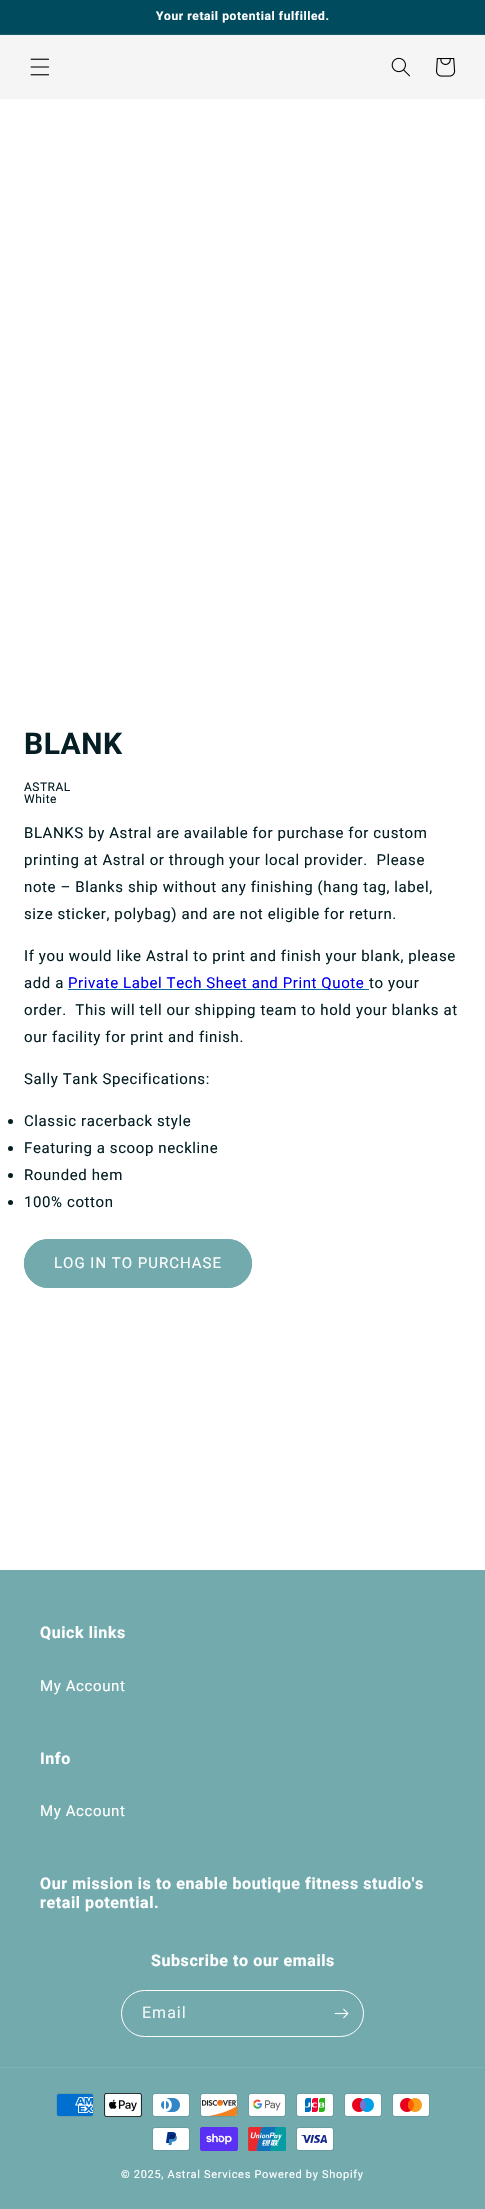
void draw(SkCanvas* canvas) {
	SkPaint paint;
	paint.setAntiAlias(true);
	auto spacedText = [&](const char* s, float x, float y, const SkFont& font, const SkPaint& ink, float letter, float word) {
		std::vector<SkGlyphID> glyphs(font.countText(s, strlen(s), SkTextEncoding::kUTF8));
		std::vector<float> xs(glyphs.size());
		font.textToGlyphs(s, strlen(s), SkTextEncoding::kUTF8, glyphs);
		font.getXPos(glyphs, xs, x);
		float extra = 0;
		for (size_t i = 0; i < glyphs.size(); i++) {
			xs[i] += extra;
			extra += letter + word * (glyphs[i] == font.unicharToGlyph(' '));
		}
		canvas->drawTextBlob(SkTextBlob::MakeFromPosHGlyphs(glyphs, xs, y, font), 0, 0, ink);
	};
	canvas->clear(0xffffffff);
	paint.setColor(0xff004b5d);
	canvas->drawRect(SkRect::MakeXYWH(0, 0, 485, 34), paint);
	paint.setColor(0xff14596a);
	canvas->drawRect(SkRect::MakeXYWH(0, 34, 485, 1), paint);
	SkFont f1(fontMgr->matchFamilyStyle("Roboto", SkFontStyle::Bold()), 12);
	f1.setSubpixel(true);
	paint.setColor(0xffffffff);
	spacedText("Your retail potential fulfilled.", 156, 20, f1, paint, 0.6, 0);
	paint.setColor(0xfff5f5f5);
	canvas->drawRect(SkRect::MakeXYWH(0, 35, 485, 64), paint);
	canvas->drawImageRect(SkImages::DeferredFromEncodedData(SkData::MakeFromFileName("img1.png")), SkRect::MakeXYWH(30, 58, 20, 18), SkSamplingOptions());
	canvas->drawImageRect(SkImages::DeferredFromEncodedData(SkData::MakeFromFileName("img2.png")), SkRect::MakeXYWH(391, 57, 19, 20), SkSamplingOptions());
	canvas->drawImageRect(SkImages::DeferredFromEncodedData(SkData::MakeFromFileName("img3.png")), SkRect::MakeXYWH(436, 58, 20, 19), SkSamplingOptions());
	SkFont f2(fontMgr->matchFamilyStyle("Roboto", SkFontStyle::Bold()), 30);
	f2.setSubpixel(true);
	paint.setColor(0xff041e24);
	spacedText("BLANK", 24, 754, f2, paint, 0.6, 0);
	SkFont f3(fontMgr->matchFamilyStyle("Roboto", SkFontStyle::Normal()), 12);
	f3.setSubpixel(true);
	spacedText("ASTRAL", 24, 791, f3, paint, 0.5, 0);
	spacedText("White", 24, 803, f3, paint, 0.5, 0);
	SkFont f4(fontMgr->matchFamilyStyle("Roboto", SkFontStyle::Normal()), 15);
	f4.setSubpixel(true);
	spacedText("BLANKS by Astral are available for purchase for custom", 24, 838, f4, paint, 0.6, 0);
	spacedText("printing at Astral or through your local provider.  Please", 24, 865, f4, paint, 0.6, 0);
	spacedText("note – Blanks ship without any finishing (hang tag, label,", 24, 892, f4, paint, 0.6, 0);
	spacedText("size sticker, polybag) and are not eligible for return.", 24, 919, f4, paint, 0.6, 0);
	spacedText("If you would like Astral to print and finish your blank, please", 24, 961, f4, paint, 0.6, 0);
	spacedText("add a", 24, 988, f4, paint, 0.6, 0);
	paint.setColor(0xff0b70a3);
	canvas->drawRect(SkRect::MakeXYWH(68, 989, 301, 1), paint);
	paint.setColor(0xff0000ee);
	spacedText("Private Label Tech Sheet and Print Quote", 68, 988, f4, paint, 0.6, 0);
	paint.setColor(0xff041e24);
	spacedText("to your", 369, 988, f4, paint, 0.6, 0);
	spacedText("order.  This will tell our shipping team to hold your blanks at", 24, 1015, f4, paint, 0.6, 0);
	spacedText("our facility for print and finish.", 24, 1042, f4, paint, 0.6, 0);
	spacedText("Sally Tank Specifications:", 24, 1084, f4, paint, 0.6, 0);
	canvas->drawCircle(10.5, 1121.5, 2.5, paint);
	spacedText("Classic racerback style", 24, 1126, f4, paint, 0.6, 0);
	canvas->drawCircle(10.5, 1148.5, 2.5, paint);
	spacedText("Featuring a scoop neckline", 24, 1153, f4, paint, 0.6, 0);
	canvas->drawCircle(10.5, 1175.5, 2.5, paint);
	spacedText("Rounded hem", 24, 1180, f4, paint, 0.6, 0);
	canvas->drawCircle(10.5, 1202.5, 2.5, paint);
	spacedText("100% cotton", 24, 1207, f4, paint, 0.6, 0);
	paint.setColor(0xff73aaae);
	canvas->drawRoundRect(SkRect::MakeXYWH(24, 1239, 228, 49), 24.5, 24.5, paint);
	paint.setStroke(true);
	paint.setStrokeWidth(2);
	canvas->drawRoundRect(SkRect::MakeXYWH(25, 1240, 226, 47), 23.5, 23.5, paint);
	paint.setStroke(false);
	paint.setColor(0xffffffff);
	spacedText("LOG IN TO PURCHASE", 54, 1268, f4, paint, 1, 0);
	paint.setColor(0xff73aaae);
	canvas->drawRect(SkRect::MakeXYWH(0, 1570, 485, 639), paint);
	SkFont f5(fontMgr->matchFamilyStyle("Roboto", SkFontStyle::Bold()), 16);
	f5.setSubpixel(true);
	paint.setColor(0xffffffff);
	spacedText("Quick links", 40, 1638, f5, paint, 0.6, 0);
	spacedText("My Account", 40, 1691, f4, paint, 0.6, 0);
	spacedText("Info", 40, 1764, f5, paint, 0.6, 0);
	spacedText("My Account", 40, 1816, f4, paint, 0.6, 0);
	spacedText("Our mission is to enable boutique fitness studio's", 40, 1889, f5, paint, 0.6, 0);
	spacedText("retail potential.", 40, 1908, f5, paint, 0.6, 0);
	spacedText("Subscribe to our emails", 151, 1966, f5, paint, 0.6, 0);
	paint.setStroke(true);
	paint.setStrokeWidth(1);
	canvas->drawRoundRect(SkRect::MakeXYWH(121.5, 1990.5, 242, 46), 23, 23, paint);
	SkFont f6(fontMgr->matchFamilyStyle("Roboto", SkFontStyle::Normal()), 16);
	f6.setSubpixel(true);
	paint.setStroke(false);
	paint.setColor(0xfff1f7f7);
	spacedText("Email", 142, 2018, f6, paint, 1, 0);
	canvas->drawImageRect(SkImages::DeferredFromEncodedData(SkData::MakeFromFileName("img4.png")), SkRect::MakeXYWH(334, 2008, 15, 11), SkSamplingOptions());
	paint.setColor(0xff7eb1b4);
	canvas->drawRect(SkRect::MakeXYWH(0, 2067, 485, 1), paint);
	canvas->drawImageRect(SkImages::DeferredFromEncodedData(SkData::MakeFromFileName("img5.png")), SkRect::MakeXYWH(56, 2093, 38, 24), SkSamplingOptions());
	canvas->drawImageRect(SkImages::DeferredFromEncodedData(SkData::MakeFromFileName("img6.png")), SkRect::MakeXYWH(104, 2093, 38, 24), SkSamplingOptions());
	canvas->drawImageRect(SkImages::DeferredFromEncodedData(SkData::MakeFromFileName("img7.png")), SkRect::MakeXYWH(152, 2093, 38, 24), SkSamplingOptions());
	canvas->drawImageRect(SkImages::DeferredFromEncodedData(SkData::MakeFromFileName("img8.png")), SkRect::MakeXYWH(200, 2093, 38, 24), SkSamplingOptions());
	canvas->drawImageRect(SkImages::DeferredFromEncodedData(SkData::MakeFromFileName("img9.png")), SkRect::MakeXYWH(248, 2093, 38, 24), SkSamplingOptions());
	canvas->drawImageRect(SkImages::DeferredFromEncodedData(SkData::MakeFromFileName("img10.png")), SkRect::MakeXYWH(296, 2093, 38, 24), SkSamplingOptions());
	canvas->drawImageRect(SkImages::DeferredFromEncodedData(SkData::MakeFromFileName("img11.png")), SkRect::MakeXYWH(344, 2093, 38, 24), SkSamplingOptions());
	canvas->drawImageRect(SkImages::DeferredFromEncodedData(SkData::MakeFromFileName("img12.png")), SkRect::MakeXYWH(392, 2093, 38, 24), SkSamplingOptions());
	canvas->drawImageRect(SkImages::DeferredFromEncodedData(SkData::MakeFromFileName("img13.png")), SkRect::MakeXYWH(152, 2127, 38, 24), SkSamplingOptions());
	canvas->drawImageRect(SkImages::DeferredFromEncodedData(SkData::MakeFromFileName("img14.png")), SkRect::MakeXYWH(200, 2127, 38, 24), SkSamplingOptions());
	canvas->drawImageRect(SkImages::DeferredFromEncodedData(SkData::MakeFromFileName("img15.png")), SkRect::MakeXYWH(248, 2127, 38, 24), SkSamplingOptions());
	canvas->drawImageRect(SkImages::DeferredFromEncodedData(SkData::MakeFromFileName("img16.png")), SkRect::MakeXYWH(296, 2127, 38, 24), SkSamplingOptions());
	SkFont f7(fontMgr->matchFamilyStyle("Roboto", SkFontStyle::Normal()), 11);
	f7.setSubpixel(true);
	paint.setColor(0xffffffff);
	spacedText("© 2025, Astral Services Powered by Shopify", 121, 2178, f7, paint, 0.7, 0);
}
